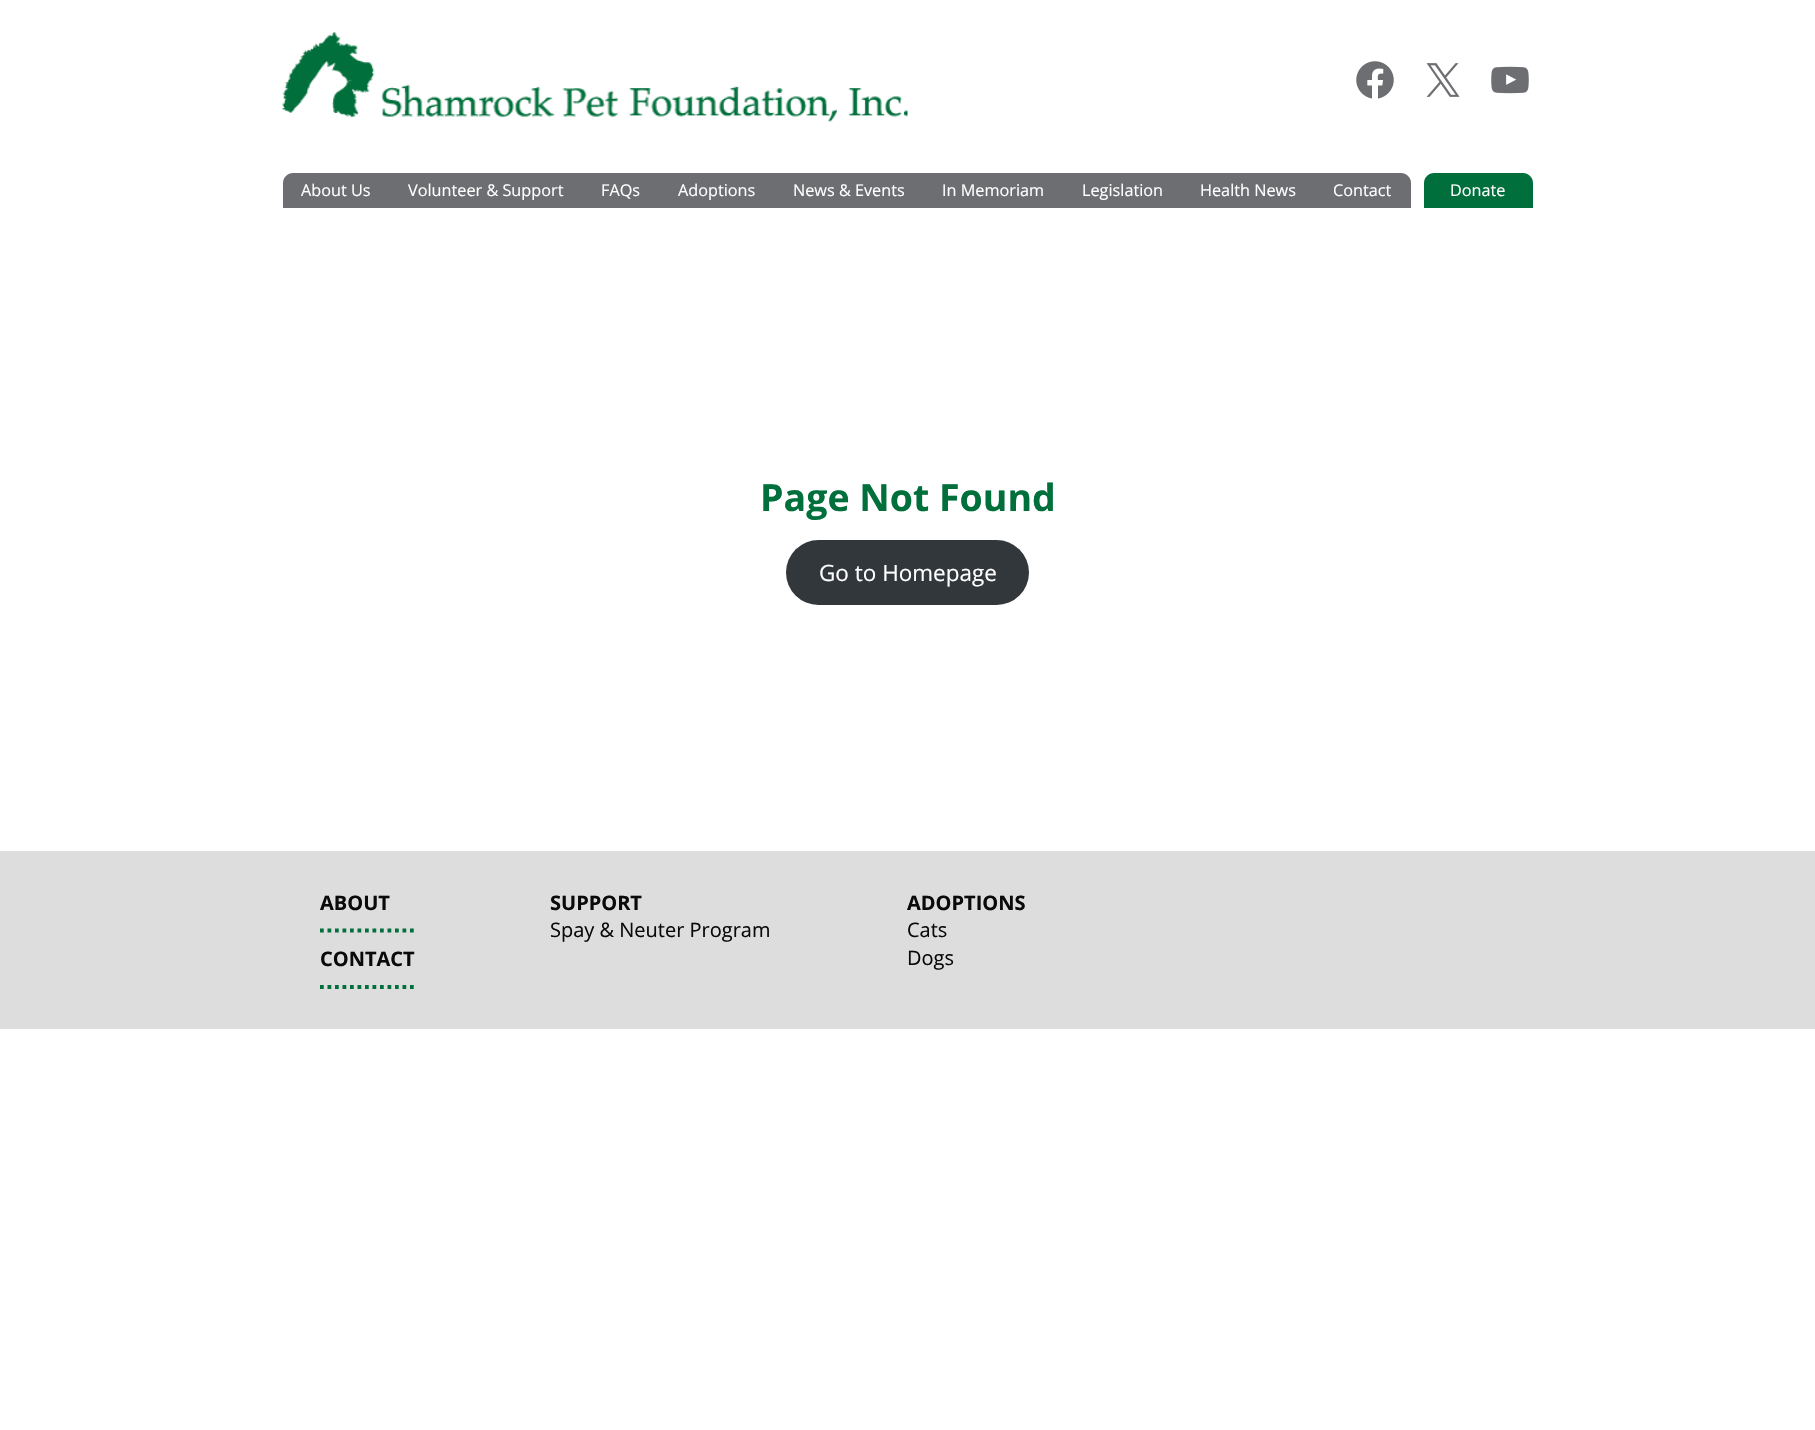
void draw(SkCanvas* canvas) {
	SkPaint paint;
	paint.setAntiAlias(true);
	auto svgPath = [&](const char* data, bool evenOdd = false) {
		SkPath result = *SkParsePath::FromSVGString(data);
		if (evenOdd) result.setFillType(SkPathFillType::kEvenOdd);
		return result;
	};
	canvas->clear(0xffffffff);
	canvas->drawImageRect(SkImages::DeferredFromEncodedData(SkData::MakeFromFileName("img1.png")), SkRect::MakeXYWH(282, 32, 626, 90), SkSamplingOptions());
	canvas->drawImageRect(SkImages::DeferredFromEncodedData(SkData::MakeFromFileName("img2.png")), SkRect::MakeXYWH(1356, 61, 38, 38), SkSamplingOptions());
	canvas->drawImageRect(SkImages::DeferredFromEncodedData(SkData::MakeFromFileName("img3.png")), SkRect::MakeXYWH(1426, 63, 34, 34), SkSamplingOptions());
	canvas->drawImageRect(SkImages::DeferredFromEncodedData(SkData::MakeFromFileName("img4.png")), SkRect::MakeXYWH(1491, 66, 38, 28), SkSamplingOptions());
	paint.setColor(0xff6d6e71);
	canvas->drawPath(svgPath("M293 173H390V208H283V183C283 177.5 287.5 173 293 173Z"), paint);
	SkFont f1(fontMgr->matchFamilyStyle("Open Sans", SkFontStyle::Normal()), 16.25);
	f1.setSubpixel(true);
	paint.setColor(0xffffffff);
	canvas->drawString("About Us", 301, 196, f1, paint);
	paint.setColor(0xff6d6e71);
	canvas->drawRect(SkRect::MakeXYWH(390, 173, 925, 35), paint);
	paint.setColor(0xffffffff);
	canvas->drawString("Volunteer & Support", 408, 196, f1, paint);
	canvas->drawString("FAQs", 601, 196, f1, paint);
	canvas->drawString("Adoptions", 678, 196, f1, paint);
	canvas->drawString("News & Events", 793, 196, f1, paint);
	canvas->drawString("In Memoriam", 942, 196, f1, paint);
	canvas->drawString("Legislation", 1082, 196, f1, paint);
	canvas->drawString("Health News", 1200, 196, f1, paint);
	paint.setColor(0xff6d6e71);
	canvas->drawPath(svgPath("M1315 173H1401C1406.5 173 1411 177.5 1411 183V208H1315Z"), paint);
	paint.setColor(0xffffffff);
	canvas->drawString("Contact", 1333, 196, f1, paint);
	paint.setColor(0xff006f3b);
	canvas->drawPath(svgPath("M1434 173H1523C1528.5 173 1533 177.5 1533 183V208H1424V183C1424 177.5 1428.5 173 1434 173Z"), paint);
	paint.setColor(0xffffffff);
	canvas->drawString("Donate", 1450, 196, f1, paint);
	SkFont f2(fontMgr->matchFamilyStyle("Open Sans", SkFontStyle::Bold()), 37.5);
	f2.setSubpixel(true);
	paint.setColor(0xff006f3b);
	canvas->drawString("Page Not Found", 760, 511, f2, paint);
	paint.setColor(0xff32373c);
	canvas->drawRoundRect(SkRect::MakeXYWH(786, 540, 243, 65), 32.5, 32.5, paint);
	SkFont f3(fontMgr->matchFamilyStyle("Open Sans", SkFontStyle::Normal()), 22.5);
	f3.setSubpixel(true);
	paint.setColor(0xffffffff);
	canvas->drawString("Go to Homepage", 819, 581, f3, paint);
	paint.setColor(0xffdddddd);
	canvas->drawRect(SkRect::MakeXYWH(0, 851, 1815, 178), paint);
	SkFont f4(fontMgr->matchFamilyStyle("Open Sans", SkFontStyle::Bold()), 20);
	f4.setSubpixel(true);
	paint.setColor(0xff0a0a0a);
	canvas->drawString("ABOUT", 320, 910, f4, paint);
	paint.setStroke(true);
	paint.setStrokeWidth(3.8);
	paint.setColor(0xff006f3b);
	paint.setPathEffect(SkDashPathEffect::Make({{3.75f, 3.75f}}, 0));
	canvas->drawPath(svgPath("M320 930.5H415"), paint);
	paint.setPathEffect(nullptr);
	paint.setStroke(false);
	paint.setColor(0xff0a0a0a);
	canvas->drawString("CONTACT", 320, 966, f4, paint);
	paint.setStroke(true);
	paint.setColor(0xff006f3b);
	paint.setPathEffect(SkDashPathEffect::Make({{3.75f, 3.75f}}, 0));
	canvas->drawPath(svgPath("M320 987H415"), paint);
	paint.setPathEffect(nullptr);
	paint.setStroke(false);
	paint.setColor(0xff0a0a0a);
	canvas->drawString("SUPPORT", 550, 910, f4, paint);
	SkFont f5(fontMgr->matchFamilyStyle("Open Sans", SkFontStyle::Normal()), 20);
	f5.setSubpixel(true);
	canvas->drawString("Spay & Neuter Program", 550, 937, f5, paint);
	canvas->drawString("ADOPTIONS", 907, 910, f4, paint);
	canvas->drawString("Cats", 907, 937, f5, paint);
	canvas->drawString("Dogs", 907, 965, f5, paint);
}
